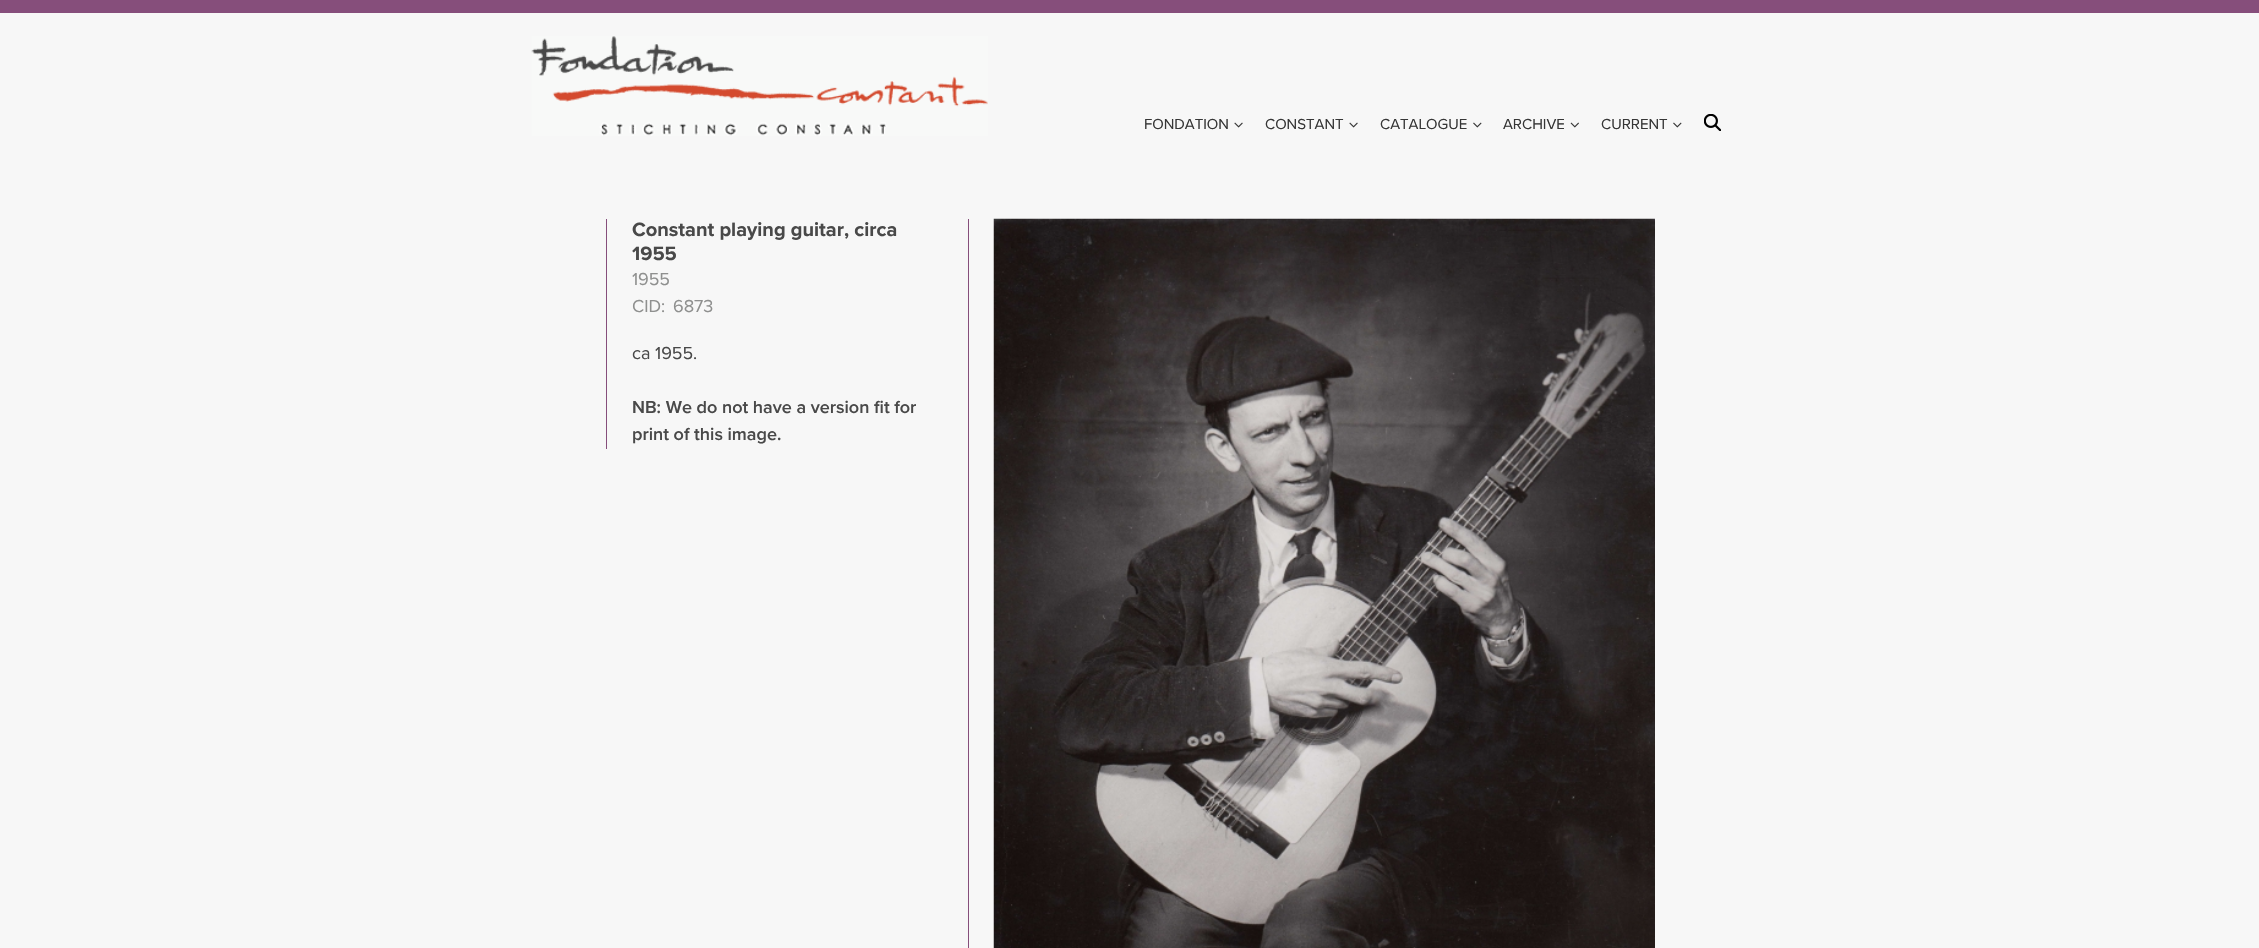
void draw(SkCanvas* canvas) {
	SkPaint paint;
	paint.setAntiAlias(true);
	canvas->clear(0xfff7f7f7);
	paint.setColor(0xff864e7b);
	canvas->drawRect(SkRect::MakeXYWH(0, 0, 2259, 13), paint);
	canvas->drawImageRect(SkImages::DeferredFromEncodedData(SkData::MakeFromFileName("img1.png")), SkRect::MakeXYWH(531, 36, 457, 100), SkSamplingOptions());
	SkFont f1(fontMgr->matchFamilyStyle("Proxima Nova", SkFontStyle::Normal()), 15);
	f1.setSubpixel(true);
	paint.setColor(0xff363636);
	canvas->drawString("FONDATION", 1144, 129, f1, paint);
	canvas->drawImageRect(SkImages::DeferredFromEncodedData(SkData::MakeFromFileName("img2.png")), SkRect::MakeXYWH(1234, 122, 9, 6), SkSamplingOptions());
	canvas->drawString("CONSTANT", 1265, 129, f1, paint);
	canvas->drawImageRect(SkImages::DeferredFromEncodedData(SkData::MakeFromFileName("img2.png")), SkRect::MakeXYWH(1349, 122, 9, 6), SkSamplingOptions());
	canvas->drawString("CATALOGUE", 1380, 129, f1, paint);
	canvas->drawImageRect(SkImages::DeferredFromEncodedData(SkData::MakeFromFileName("img3.png")), SkRect::MakeXYWH(1473, 122, 9, 6), SkSamplingOptions());
	canvas->drawString("ARCHIVE", 1503, 129, f1, paint);
	canvas->drawImageRect(SkImages::DeferredFromEncodedData(SkData::MakeFromFileName("img4.png")), SkRect::MakeXYWH(1570, 122, 9, 6), SkSamplingOptions());
	canvas->drawString("CURRENT", 1601, 129, f1, paint);
	canvas->drawImageRect(SkImages::DeferredFromEncodedData(SkData::MakeFromFileName("img3.png")), SkRect::MakeXYWH(1673, 122, 9, 6), SkSamplingOptions());
	canvas->drawImageRect(SkImages::DeferredFromEncodedData(SkData::MakeFromFileName("img5.png")), SkRect::MakeXYWH(1704, 114, 17, 17), SkSamplingOptions());
	paint.setColor(0xff864e7b);
	canvas->drawRect(SkRect::MakeXYWH(606, 219, 1, 230), paint);
	SkFont f2(fontMgr->matchFamilyStyle("Proxima Nova", SkFontStyle::Bold()), 20);
	f2.setSubpixel(true);
	paint.setColor(0xff494949);
	canvas->drawString("Constant playing guitar, circa", 632, 236, f2, paint);
	canvas->drawString("1955", 632, 260, f2, paint);
	SkFont f3(fontMgr->matchFamilyStyle("Proxima Nova", SkFontStyle::Normal()), 18);
	f3.setSubpixel(true);
	paint.setColor(0xff8f908f);
	canvas->drawString("1955", 632, 285, f3, paint);
	canvas->drawString("CID:", 632, 312, f3, paint);
	canvas->drawString("6873", 673, 312, f3, paint);
	paint.setColor(0xff494949);
	canvas->drawString("ca 1955.", 632, 359, f3, paint);
	SkFont f4(fontMgr->matchFamilyStyle("Proxima Nova", SkFontStyle(600, SkFontStyle::kNormal_Width, SkFontStyle::kUpright_Slant)), 18);
	f4.setSubpixel(true);
	canvas->drawString("NB: We do not have a version fit for", 632, 413, f4, paint);
	canvas->drawString("print of this image.", 632, 440, f4, paint);
	paint.setColor(0xff864e7b);
	canvas->drawRect(SkRect::MakeXYWH(968, 219, 1, 729), paint);
	canvas->drawImageRect(SkImages::DeferredFromEncodedData(SkData::MakeFromFileName("img6.png")), SkRect::MakeXYWH(993, 218, 662, 730), SkSamplingOptions());
}
